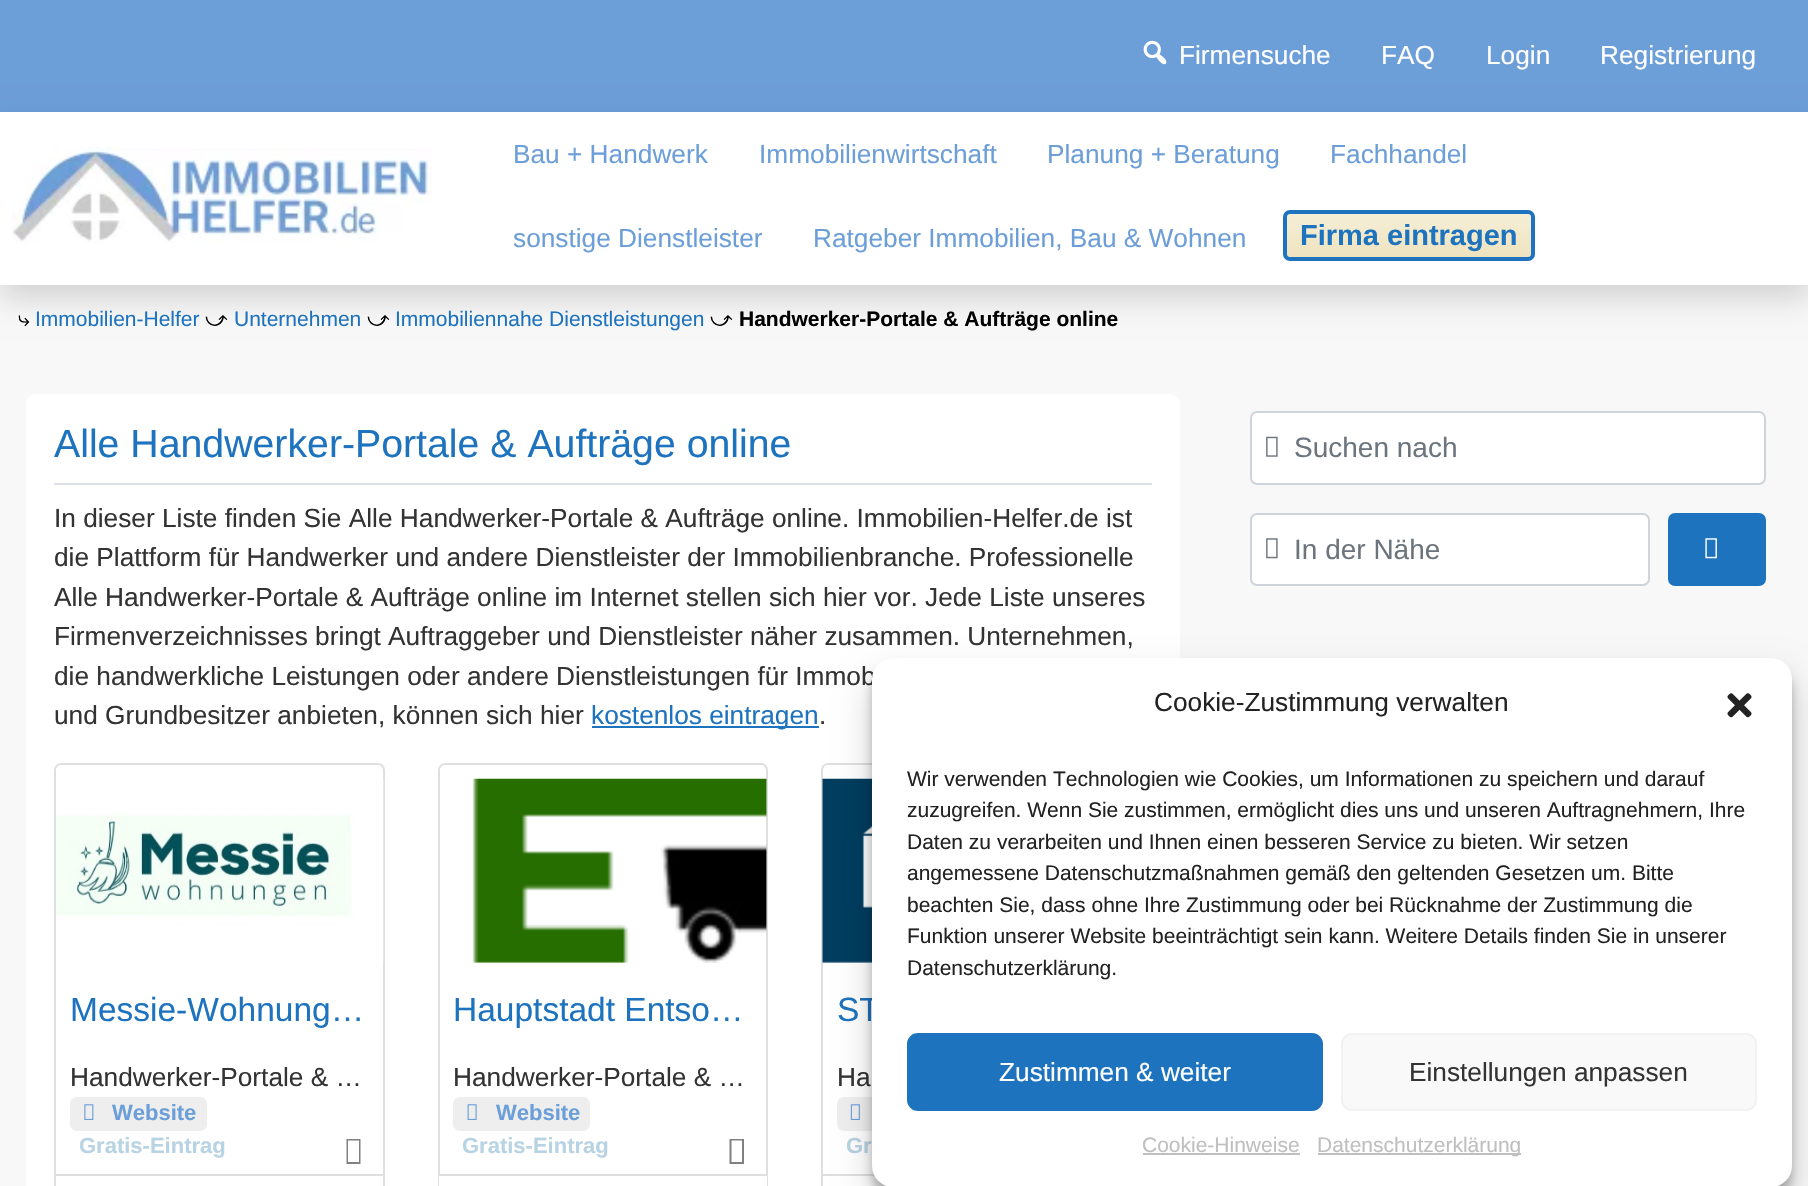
void draw(SkCanvas* canvas) {
	SkPaint paint;
	paint.setAntiAlias(true);
	auto svgPath = [&](const char* data, bool evenOdd = false) {
		SkPath result = *SkParsePath::FromSVGString(data);
		if (evenOdd) result.setFillType(SkPathFillType::kEvenOdd);
		return result;
	};
	canvas->clear(0xfff8f8f8);
	paint.setColor(0xff6c9ed8);
	canvas->drawRect(SkRect::MakeXYWH(0, 0, 1808, 112), paint);
	canvas->drawImageRect(SkImages::DeferredFromEncodedData(SkData::MakeFromFileName("img1.png")), SkRect::MakeXYWH(1143, 40, 24, 25), SkSamplingOptions());
	SkFont f1(fontMgr->matchFamilyStyle("Liberation Sans", SkFontStyle::Normal()), 26.25);
	f1.setSubpixel(true);
	paint.setColor(0xffffffff);
	canvas->drawString("Firmensuche", 1179, 64, f1, paint);
	canvas->drawString("FAQ", 1381, 64, f1, paint);
	canvas->drawString("Login", 1486, 64, f1, paint);
	canvas->drawString("Registrierung", 1600, 64, f1, paint);
	paint.setColor(0x26000000);
	paint.setMaskFilter(SkMaskFilter::MakeBlur(kNormal_SkBlurStyle, 14));
	canvas->drawRect(SkRect::MakeXYWH(0, 126, 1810, 173), paint);
	paint.setMaskFilter(nullptr);
	paint.setColor(0xffffffff);
	canvas->drawRect(SkRect::MakeXYWH(0, 112, 1808, 173), paint);
	canvas->drawImageRect(SkImages::DeferredFromEncodedData(SkData::MakeFromFileName("img2.png")), SkRect::MakeXYWH(12, 147, 420, 97), SkSamplingOptions());
	paint.setColor(0xff6c9ed8);
	canvas->drawString("Bau + Handwerk", 513, 163, f1, paint);
	canvas->drawString("Immobilienwirtschaft", 759, 163, f1, paint);
	canvas->drawString("Planung + Beratung", 1047, 163, f1, paint);
	canvas->drawString("Fachhandel", 1330, 163, f1, paint);
	canvas->drawString("sonstige Dienstleister", 513, 247, f1, paint);
	canvas->drawString("Ratgeber Immobilien, Bau & Wohnen", 813, 247, f1, paint);
	canvas->save();
	canvas->clipPath(svgPath("M1290 210H1528C1532 210 1535 213 1535 217V254C1535 258 1532 261 1528 261H1290C1286 261 1283 258 1283 254V217C1283 213 1286 210 1290 210Z"), true);
	{
		const SkColor colors[] = {0xfff6efd7, 0xffeee3bf};
		const float stops[] = {0, 1};
		const SkPoint ends[] = {{1409, 213}, {1409, 257}};
		paint.setShader(SkGradientShader::MakeLinear(ends, colors, stops, 2, SkTileMode::kClamp));
		paint.setAlpha(255);
	}
	canvas->drawRect(SkRect::MakeXYWH(1283, 214, 252, 43), paint);
	canvas->restore();
	paint.setStroke(true);
	paint.setStrokeWidth(4);
	paint.setShader(nullptr);
	paint.setColor(0xff1e73be);
	canvas->drawRoundRect(SkRect::MakeXYWH(1285, 212, 248, 47), 5, 5, paint);
	SkFont f2(fontMgr->matchFamilyStyle("Liberation Sans", SkFontStyle::Bold()), 29);
	f2.setSubpixel(true);
	paint.setStroke(false);
	canvas->drawString("Firma eintragen", 1300, 245, f2, paint);
	SkFont f3(fontMgr->matchFamilyStyle("FreeSerif", SkFontStyle::Normal()), 21);
	f3.setSubpixel(true);
	paint.setColor(0xff000000);
	canvas->drawString("⤷", 18, 326, f3, paint);
	SkFont f4(fontMgr->matchFamilyStyle("Liberation Sans", SkFontStyle::Normal()), 21);
	f4.setSubpixel(true);
	paint.setColor(0xff1e73be);
	canvas->drawString("Immobilien-Helfer", 35, 326, f4, paint);
	paint.setColor(0xff000000);
	canvas->drawString("⤻", 205, 326, f3, paint);
	paint.setColor(0xff1e73be);
	canvas->drawString("Unternehmen", 234, 326, f4, paint);
	paint.setColor(0xff000000);
	canvas->drawString("⤻", 367, 326, f3, paint);
	paint.setColor(0xff1e73be);
	canvas->drawString("Immobiliennahe Dienstleistungen", 395, 326, f4, paint);
	paint.setColor(0xff000000);
	canvas->drawString("⤻", 710, 326, f3, paint);
	SkFont f5(fontMgr->matchFamilyStyle("Liberation Sans", SkFontStyle::Bold()), 21);
	f5.setSubpixel(true);
	canvas->drawString("Handwerker-Portale & Aufträge online", 739, 326, f5, paint);
	paint.setColor(0xffffffff);
	canvas->drawRoundRect(SkRect::MakeXYWH(26, 394, 1154, 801), 9, 9, paint);
	paint.setColor(0xffdee2e6);
	canvas->drawRect(SkRect::MakeXYWH(54, 483, 1098, 2), paint);
	SkFont f6(fontMgr->matchFamilyStyle("Liberation Sans", SkFontStyle::Normal()), 39.25);
	f6.setSubpixel(true);
	paint.setColor(0xff1e73be);
	canvas->drawString("Alle Handwerker-Portale & Aufträge online", 54, 457, f6, paint);
	paint.setColor(0xff333333);
	canvas->drawString("In dieser Liste finden Sie Alle Handwerker-Portale & Aufträge online. Immobilien-Helfer.de ist", 54, 527, f1, paint);
	canvas->drawString("die Plattform für Handwerker und andere Dienstleister der Immobilienbranche. Professionelle", 54, 566, f1, paint);
	canvas->drawString("Alle Handwerker-Portale & Aufträge online im Internet stellen sich hier vor. Jede Liste unseres", 54, 606, f1, paint);
	canvas->drawString("Firmenverzeichnisses bringt Auftraggeber und Dienstleister näher zusammen. Unternehmen,", 54, 645, f1, paint);
	canvas->drawString("die handwerkliche Leistungen oder andere Dienstleistungen für Immob", 54, 685, f1, paint);
	canvas->drawString("und Grundbesitzer anbieten, können sich hier", 54, 724, f1, paint);
	paint.setColor(0xff1e73be);
	canvas->drawRect(SkRect::MakeXYWH(592, 726, 227, 2), paint);
	canvas->drawString("kostenlos eintragen", 591, 724, f1, paint);
	paint.setColor(0xff333333);
	canvas->drawString(".", 819, 724, f1, paint);
	paint.setStroke(true);
	paint.setStrokeWidth(2);
	paint.setColor(0xffdfdfdf);
	canvas->drawRoundRect(SkRect::MakeXYWH(55, 764, 329, 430), 6, 6, paint);
	canvas->drawImageRect(SkImages::DeferredFromEncodedData(SkData::MakeFromFileName("img3.png")), SkRect::MakeXYWH(56, 779, 328, 184), SkSamplingOptions());
	SkFont f7(fontMgr->matchFamilyStyle("Liberation Sans", SkFontStyle::Normal()), 33.5);
	f7.setSubpixel(true);
	paint.setStroke(false);
	paint.setColor(0xff1e73be);
	canvas->drawString("Messie-Wohnung…", 70, 1021, f7, paint);
	paint.setColor(0xff333333);
	canvas->drawString("Handwerker-Portale & …", 70, 1086, f1, paint);
	paint.setColor(0xffeeeeee);
	canvas->drawRoundRect(SkRect::MakeXYWH(70, 1097, 137, 34), 7, 7, paint);
	canvas->drawImageRect(SkImages::DeferredFromEncodedData(SkData::MakeFromFileName("img4.png")), SkRect::MakeXYWH(84, 1104, 10, 16), SkSamplingOptions());
	SkFont f8(fontMgr->matchFamilyStyle("Liberation Sans", SkFontStyle::Bold()), 22);
	f8.setSubpixel(true);
	paint.setColor(0xff6c9ed8);
	canvas->drawString("Website", 112, 1120, f8, paint);
	paint.setColor(0xffb8d3e3);
	canvas->drawString("Gratis-Eintrag", 79, 1153, f8, paint);
	paint.setColor(0xff808080);
	canvas->drawPath(svgPath("M346.5 1164V1139H360.5V1164ZM348 1162H359V1140.5H348Z"), paint);
	paint.setColor(0xffdfdfdf);
	canvas->drawRect(SkRect::MakeXYWH(56, 1174, 327, 2), paint);
	paint.setStroke(true);
	canvas->drawRoundRect(SkRect::MakeXYWH(439, 764, 328, 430), 6, 6, paint);
	canvas->drawImageRect(SkImages::DeferredFromEncodedData(SkData::MakeFromFileName("img5.png")), SkRect::MakeXYWH(472, 778, 295, 185), SkSamplingOptions());
	paint.setStroke(false);
	paint.setColor(0xff1e73be);
	canvas->drawString("Hauptstadt Entso…", 453, 1021, f7, paint);
	paint.setColor(0xff333333);
	canvas->drawString("Handwerker-Portale & …", 453, 1086, f1, paint);
	paint.setColor(0xffeeeeee);
	canvas->drawRoundRect(SkRect::MakeXYWH(453, 1097, 137, 34), 7, 7, paint);
	canvas->drawImageRect(SkImages::DeferredFromEncodedData(SkData::MakeFromFileName("img6.png")), SkRect::MakeXYWH(467, 1104, 10, 16), SkSamplingOptions());
	paint.setColor(0xff6c9ed8);
	canvas->drawString("Website", 496, 1120, f8, paint);
	paint.setColor(0xffb8d3e3);
	canvas->drawString("Gratis-Eintrag", 462, 1153, f8, paint);
	paint.setColor(0xff808080);
	canvas->drawPath(svgPath("M729.5 1164V1139H744V1164ZM731.5 1162H742V1140.5H731.5Z"), paint);
	paint.setColor(0xffffffff);
	canvas->drawRect(SkRect::MakeXYWH(439, 1176, 328, 10), paint);
	paint.setColor(0xffdfdfdf);
	canvas->drawRect(SkRect::MakeXYWH(439, 1174, 328, 2), paint);
	paint.setStroke(true);
	canvas->drawRoundRect(SkRect::MakeXYWH(822, 764, 329, 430), 6, 6, paint);
	canvas->drawImageRect(SkImages::DeferredFromEncodedData(SkData::MakeFromFileName("img7.png")), SkRect::MakeXYWH(822, 778, 50, 185), SkSamplingOptions());
	paint.setStroke(false);
	paint.setColor(0xff1e73be);
	canvas->drawString("ST", 837, 1021, f7, paint);
	paint.setColor(0xff333333);
	canvas->drawString("Ha", 837, 1086, f1, paint);
	paint.setColor(0xffeeeeee);
	canvas->drawRoundRect(SkRect::MakeXYWH(837, 1097, 136, 34), 7, 7, paint);
	canvas->drawImageRect(SkImages::DeferredFromEncodedData(SkData::MakeFromFileName("img8.png")), SkRect::MakeXYWH(850, 1104, 10, 16), SkSamplingOptions());
	paint.setColor(0xffb8d3e3);
	canvas->drawString("Gr", 846, 1153, f8, paint);
	paint.setColor(0xffdfdfdf);
	canvas->drawRect(SkRect::MakeXYWH(823, 1174, 52, 2), paint);
	paint.setColor(0xffffffff);
	canvas->drawRoundRect(SkRect::MakeXYWH(1251, 412, 514, 72), 6, 6, paint);
	paint.setStroke(true);
	paint.setColor(0xffced4da);
	canvas->drawRoundRect(SkRect::MakeXYWH(1251, 412, 514, 72), 6, 6, paint);
	canvas->drawImageRect(SkImages::DeferredFromEncodedData(SkData::MakeFromFileName("img9.png")), SkRect::MakeXYWH(1266, 436, 12, 21), SkSamplingOptions());
	SkFont f9(fontMgr->matchFamilyStyle("Liberation Sans", SkFontStyle::Normal()), 28);
	f9.setSubpixel(true);
	paint.setStroke(false);
	paint.setColor(0xff6c757d);
	canvas->drawString("Suchen nach", 1294, 457, f9, paint);
	paint.setColor(0xffffffff);
	canvas->drawRoundRect(SkRect::MakeXYWH(1251, 514, 398, 71), 6, 6, paint);
	paint.setStroke(true);
	paint.setColor(0xffced4da);
	canvas->drawRoundRect(SkRect::MakeXYWH(1251, 514, 398, 71), 6, 6, paint);
	canvas->drawImageRect(SkImages::DeferredFromEncodedData(SkData::MakeFromFileName("img10.png")), SkRect::MakeXYWH(1266, 538, 12, 21), SkSamplingOptions());
	paint.setStroke(false);
	paint.setColor(0xff6c757d);
	canvas->drawString("In der Nähe", 1294, 559, f9, paint);
	paint.setColor(0xff1e73be);
	canvas->drawRoundRect(SkRect::MakeXYWH(1669, 514, 96, 71), 6, 6, paint);
	paint.setStroke(true);
	canvas->drawRoundRect(SkRect::MakeXYWH(1669, 514, 96, 71), 6, 6, paint);
	canvas->drawImageRect(SkImages::DeferredFromEncodedData(SkData::MakeFromFileName("img11.png")), SkRect::MakeXYWH(1705, 538, 12, 21), SkSamplingOptions());
	paint.setStroke(false);
	paint.setColor(0x3b000000);
	paint.setMaskFilter(SkMaskFilter::MakeBlur(kNormal_SkBlurStyle, 5));
	canvas->drawRoundRect(SkRect::MakeXYWH(872, 669, 920, 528), 21, 21, paint);
	paint.setMaskFilter(nullptr);
	paint.setColor(0x30000000);
	paint.setMaskFilter(SkMaskFilter::MakeBlur(kNormal_SkBlurStyle, 17.5));
	canvas->drawRoundRect(SkRect::MakeXYWH(872, 676, 920, 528), 21, 21, paint);
	paint.setMaskFilter(nullptr);
	paint.setColor(0xffffffff);
	canvas->drawRoundRect(SkRect::MakeXYWH(872, 658, 920, 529), 21, 21, paint);
	paint.setColor(0xff222222);
	canvas->drawString("Cookie-Zustimmung verwalten", 1154, 711, f1, paint);
	canvas->drawImageRect(SkImages::DeferredFromEncodedData(SkData::MakeFromFileName("img12.png")), SkRect::MakeXYWH(1727, 693, 25, 25), SkSamplingOptions());
	canvas->drawString("Wir verwenden Technologien wie Cookies, um Informationen zu speichern und darauf", 907, 786, f4, paint);
	canvas->drawString("zuzugreifen. Wenn Sie zustimmen, ermöglicht dies uns und unseren Auftragnehmern, Ihre", 907, 817, f4, paint);
	canvas->drawString("Daten zu verarbeiten und Ihnen einen besseren Service zu bieten. Wir setzen", 907, 849, f4, paint);
	canvas->drawString("angemessene Datenschutzmaßnahmen gemäß den geltenden Gesetzen um. Bitte", 907, 880, f4, paint);
	canvas->drawString("beachten Sie, dass ohne Ihre Zustimmung oder bei Rücknahme der Zustimmung die", 907, 912, f4, paint);
	canvas->drawString("Funktion unserer Website beeinträchtigt sein kann. Weitere Details finden Sie in unserer", 907, 943, f4, paint);
	canvas->drawString("Datenschutzerklärung.", 907, 975, f4, paint);
	paint.setColor(0xff1e73be);
	canvas->drawRoundRect(SkRect::MakeXYWH(908, 1034, 414, 76), 10, 10, paint);
	paint.setStroke(true);
	canvas->drawRoundRect(SkRect::MakeXYWH(908, 1034, 414, 76), 10, 10, paint);
	paint.setStroke(false);
	paint.setColor(0xffffffff);
	canvas->drawString("Zustimmen & weiter", 999, 1081, f1, paint);
	paint.setColor(0xfff9f9f9);
	canvas->drawRoundRect(SkRect::MakeXYWH(1342, 1034, 414, 76), 10, 10, paint);
	paint.setStroke(true);
	paint.setColor(0xfff2f2f2);
	canvas->drawRoundRect(SkRect::MakeXYWH(1342, 1034, 414, 76), 10, 10, paint);
	paint.setStroke(false);
	paint.setColor(0xff333333);
	canvas->drawString("Einstellungen anpassen", 1409, 1081, f1, paint);
	paint.setColor(0xffbfbfbf);
	canvas->drawString("Cookie-Hinweise", 1142, 1152, f4, paint);
	canvas->drawRect(SkRect::MakeXYWH(1143, 1153, 157, 2), paint);
	canvas->drawRect(SkRect::MakeXYWH(1318, 1153, 203, 2), paint);
	canvas->drawString("Datenschutzerklärung", 1317, 1152, f4, paint);
}
